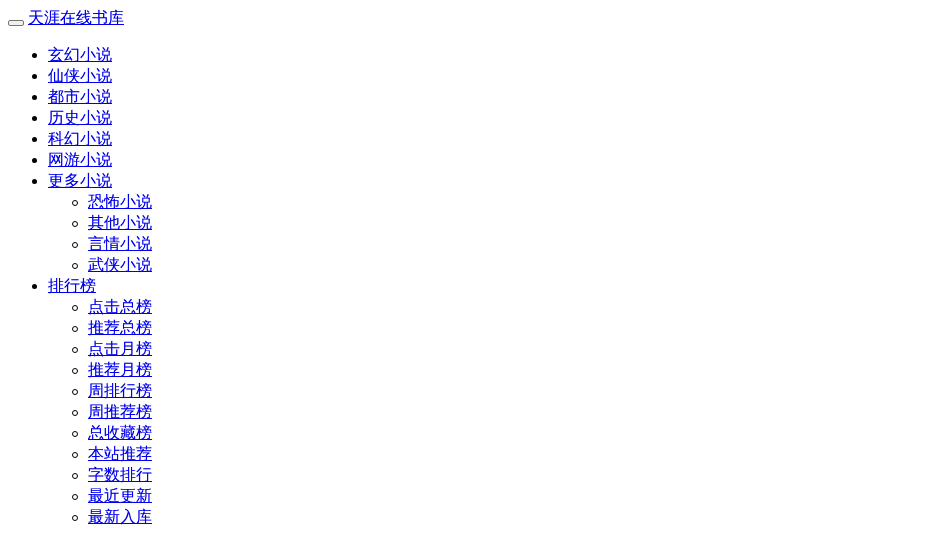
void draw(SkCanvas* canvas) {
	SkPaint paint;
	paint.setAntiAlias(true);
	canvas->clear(0xffffffff);
	paint.setColor(0xffefefef);
	canvas->drawRoundRect(SkRect::MakeXYWH(8.5, 20.5, 15, 5), 1.5, 1.5, paint);
	paint.setStroke(true);
	paint.setStrokeWidth(1);
	paint.setColor(0xff767676);
	canvas->drawRoundRect(SkRect::MakeXYWH(8.5, 20.5, 15, 5), 1.5, 1.5, paint);
	paint.setStroke(false);
	paint.setColor(0xff0000ee);
	canvas->drawRect(SkRect::MakeXYWH(28, 24, 96, 1), paint);
	SkFont f1(fontMgr->matchFamilyStyle("WenQuanYi Zen Hei", SkFontStyle(500, SkFontStyle::kNormal_Width, SkFontStyle::kUpright_Slant)), 16);
	f1.setSubpixel(true);
	canvas->drawString("天涯在线书库", 28, 23, f1, paint);
	paint.setColor(0xff000000);
	canvas->drawCircle(34.5, 55.5, 2.5, paint);
	paint.setColor(0xff0000ee);
	canvas->drawRect(SkRect::MakeXYWH(48, 61, 64, 1), paint);
	canvas->drawString("玄幻小说", 48, 60, f1, paint);
	paint.setColor(0xff000000);
	canvas->drawCircle(34.5, 76.5, 2.5, paint);
	paint.setColor(0xff0000ee);
	canvas->drawRect(SkRect::MakeXYWH(48, 82, 64, 1), paint);
	canvas->drawString("仙侠小说", 48, 81, f1, paint);
	paint.setColor(0xff000000);
	canvas->drawCircle(34.5, 97.5, 2.5, paint);
	paint.setColor(0xff0000ee);
	canvas->drawRect(SkRect::MakeXYWH(48, 103, 64, 1), paint);
	canvas->drawString("都市小说", 48, 102, f1, paint);
	paint.setColor(0xff000000);
	canvas->drawCircle(34.5, 118.5, 2.5, paint);
	paint.setColor(0xff0000ee);
	canvas->drawRect(SkRect::MakeXYWH(48, 124, 64, 1), paint);
	canvas->drawString("历史小说", 48, 123, f1, paint);
	paint.setColor(0xff000000);
	canvas->drawCircle(34.5, 139.5, 2.5, paint);
	paint.setColor(0xff0000ee);
	canvas->drawRect(SkRect::MakeXYWH(48, 145, 64, 1), paint);
	canvas->drawString("科幻小说", 48, 144, f1, paint);
	paint.setColor(0xff000000);
	canvas->drawCircle(34.5, 160.5, 2.5, paint);
	paint.setColor(0xff0000ee);
	canvas->drawRect(SkRect::MakeXYWH(48, 166, 64, 1), paint);
	canvas->drawString("网游小说", 48, 165, f1, paint);
	paint.setColor(0xff000000);
	canvas->drawCircle(34.5, 181.5, 2.5, paint);
	paint.setColor(0xff0000ee);
	canvas->drawRect(SkRect::MakeXYWH(48, 187, 64, 1), paint);
	canvas->drawString("更多小说", 48, 186, f1, paint);
	paint.setStroke(true);
	paint.setColor(0xff000000);
	canvas->drawCircle(75, 203, 2.5, paint);
	paint.setStroke(false);
	paint.setColor(0xff0000ee);
	canvas->drawRect(SkRect::MakeXYWH(88, 208, 64, 1), paint);
	canvas->drawString("恐怖小说", 88, 207, f1, paint);
	paint.setStroke(true);
	paint.setColor(0xff000000);
	canvas->drawCircle(75, 224, 2.5, paint);
	paint.setStroke(false);
	paint.setColor(0xff0000ee);
	canvas->drawRect(SkRect::MakeXYWH(88, 229, 64, 1), paint);
	canvas->drawString("其他小说", 88, 228, f1, paint);
	paint.setStroke(true);
	paint.setColor(0xff000000);
	canvas->drawCircle(75, 245, 2.5, paint);
	paint.setStroke(false);
	paint.setColor(0xff0000ee);
	canvas->drawRect(SkRect::MakeXYWH(88, 250, 64, 1), paint);
	canvas->drawString("言情小说", 88, 249, f1, paint);
	paint.setStroke(true);
	paint.setColor(0xff000000);
	canvas->drawCircle(75, 266, 2.5, paint);
	paint.setStroke(false);
	paint.setColor(0xff0000ee);
	canvas->drawRect(SkRect::MakeXYWH(88, 271, 64, 1), paint);
	canvas->drawString("武侠小说", 88, 270, f1, paint);
	paint.setColor(0xff000000);
	canvas->drawCircle(34.5, 286.5, 2.5, paint);
	paint.setColor(0xff0000ee);
	canvas->drawRect(SkRect::MakeXYWH(48, 292, 48, 1), paint);
	canvas->drawString("排行榜", 48, 291, f1, paint);
	paint.setStroke(true);
	paint.setColor(0xff000000);
	canvas->drawCircle(75, 308, 2.5, paint);
	paint.setStroke(false);
	paint.setColor(0xff0000ee);
	canvas->drawRect(SkRect::MakeXYWH(88, 313, 64, 1), paint);
	canvas->drawString("点击总榜", 88, 312, f1, paint);
	paint.setStroke(true);
	paint.setColor(0xff000000);
	canvas->drawCircle(75, 329, 2.5, paint);
	paint.setStroke(false);
	paint.setColor(0xff0000ee);
	canvas->drawRect(SkRect::MakeXYWH(88, 334, 64, 1), paint);
	canvas->drawString("推荐总榜", 88, 333, f1, paint);
	paint.setStroke(true);
	paint.setColor(0xff000000);
	canvas->drawCircle(75, 350, 2.5, paint);
	paint.setStroke(false);
	paint.setColor(0xff0000ee);
	canvas->drawRect(SkRect::MakeXYWH(88, 355, 64, 1), paint);
	canvas->drawString("点击月榜", 88, 354, f1, paint);
	paint.setStroke(true);
	paint.setColor(0xff000000);
	canvas->drawCircle(75, 371, 2.5, paint);
	paint.setStroke(false);
	paint.setColor(0xff0000ee);
	canvas->drawRect(SkRect::MakeXYWH(88, 376, 64, 1), paint);
	canvas->drawString("推荐月榜", 88, 375, f1, paint);
	paint.setStroke(true);
	paint.setColor(0xff000000);
	canvas->drawCircle(75, 392, 2.5, paint);
	paint.setStroke(false);
	paint.setColor(0xff0000ee);
	canvas->drawRect(SkRect::MakeXYWH(88, 397, 64, 1), paint);
	canvas->drawString("周排行榜", 88, 396, f1, paint);
	paint.setStroke(true);
	paint.setColor(0xff000000);
	canvas->drawCircle(75, 413, 2.5, paint);
	paint.setStroke(false);
	paint.setColor(0xff0000ee);
	canvas->drawRect(SkRect::MakeXYWH(88, 418, 64, 1), paint);
	canvas->drawString("周推荐榜", 88, 417, f1, paint);
	paint.setStroke(true);
	paint.setColor(0xff000000);
	canvas->drawCircle(75, 434, 2.5, paint);
	paint.setStroke(false);
	paint.setColor(0xff0000ee);
	canvas->drawRect(SkRect::MakeXYWH(88, 439, 64, 1), paint);
	canvas->drawString("总收藏榜", 88, 438, f1, paint);
	paint.setStroke(true);
	paint.setColor(0xff000000);
	canvas->drawCircle(75, 455, 2.5, paint);
	paint.setStroke(false);
	paint.setColor(0xff0000ee);
	canvas->drawRect(SkRect::MakeXYWH(88, 460, 64, 1), paint);
	canvas->drawString("本站推荐", 88, 459, f1, paint);
	paint.setStroke(true);
	paint.setColor(0xff000000);
	canvas->drawCircle(75, 476, 2.5, paint);
	paint.setStroke(false);
	paint.setColor(0xff0000ee);
	canvas->drawRect(SkRect::MakeXYWH(88, 481, 64, 1), paint);
	canvas->drawString("字数排行", 88, 480, f1, paint);
	paint.setStroke(true);
	paint.setColor(0xff000000);
	canvas->drawCircle(75, 497, 2.5, paint);
	paint.setStroke(false);
	paint.setColor(0xff0000ee);
	canvas->drawRect(SkRect::MakeXYWH(88, 502, 64, 1), paint);
	canvas->drawString("最近更新", 88, 501, f1, paint);
	paint.setStroke(true);
	paint.setColor(0xff000000);
	canvas->drawCircle(75, 518, 2.5, paint);
	paint.setStroke(false);
	paint.setColor(0xff0000ee);
	canvas->drawRect(SkRect::MakeXYWH(88, 523, 64, 1), paint);
	canvas->drawString("最新入库", 88, 522, f1, paint);
}
